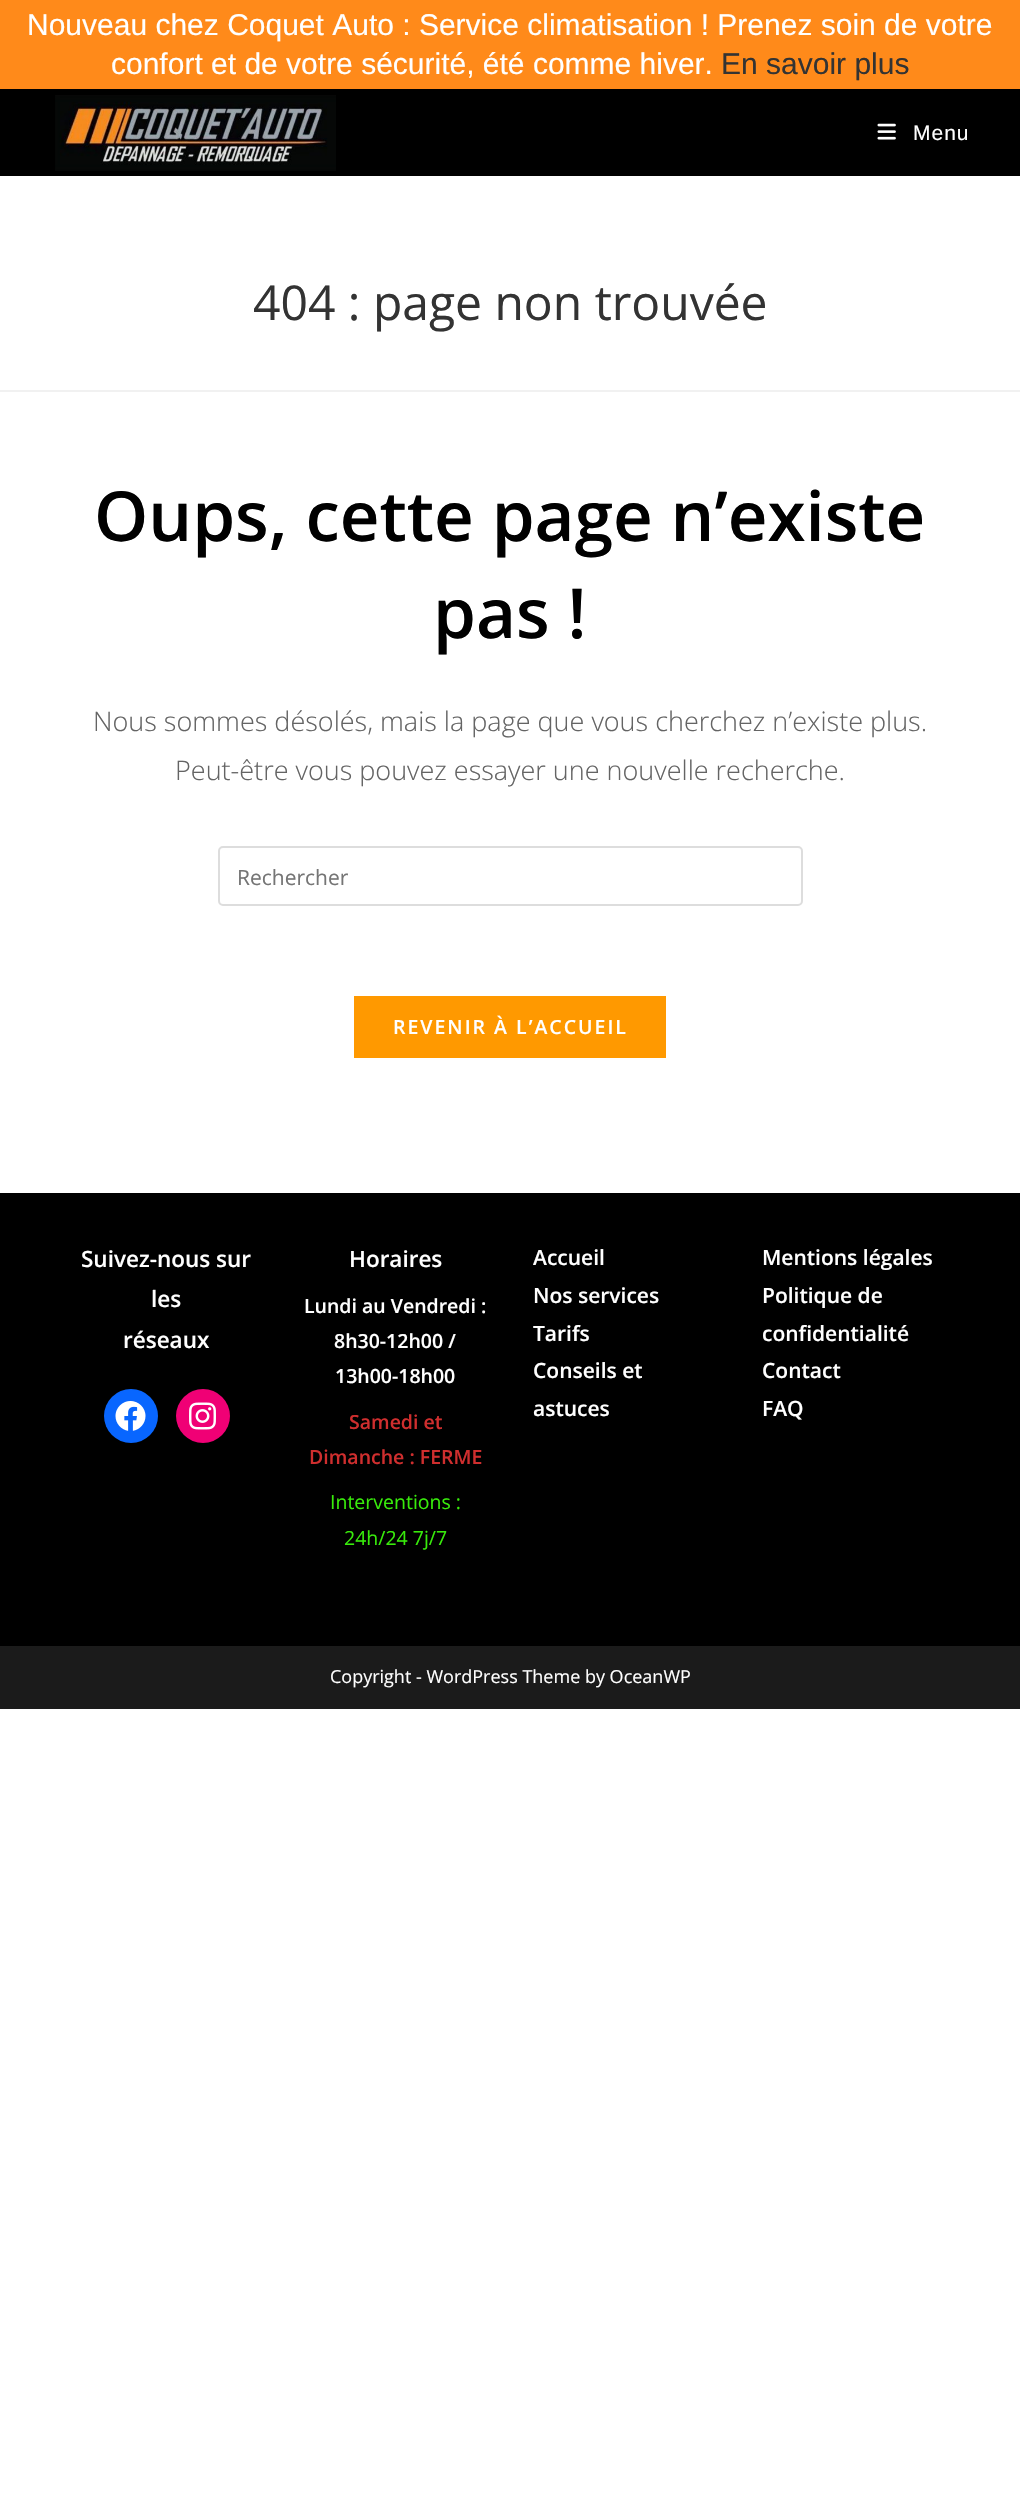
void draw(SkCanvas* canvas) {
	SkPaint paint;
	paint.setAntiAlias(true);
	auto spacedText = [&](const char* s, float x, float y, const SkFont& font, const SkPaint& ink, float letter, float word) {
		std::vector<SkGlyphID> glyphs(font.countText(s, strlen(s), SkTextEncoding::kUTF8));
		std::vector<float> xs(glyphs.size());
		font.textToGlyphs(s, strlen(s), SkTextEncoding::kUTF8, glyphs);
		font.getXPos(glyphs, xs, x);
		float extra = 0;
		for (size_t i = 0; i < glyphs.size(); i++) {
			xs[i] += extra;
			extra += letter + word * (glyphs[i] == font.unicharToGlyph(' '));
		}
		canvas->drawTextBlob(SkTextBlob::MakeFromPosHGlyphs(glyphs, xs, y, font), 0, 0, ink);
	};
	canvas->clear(0xffffffff);
	paint.setColor(0xffff8a1a);
	canvas->drawRect(SkRect::MakeXYWH(0, 0, 1020, 89), paint);
	SkFont f1(fontMgr->matchFamilyStyle("Liberation Sans", SkFontStyle::Normal()), 30);
	f1.setSubpixel(true);
	paint.setColor(0xffffffff);
	canvas->drawString("Nouveau chez Coquet Auto : Service climatisation ! Prenez soin de votre", 27, 35, f1, paint);
	canvas->drawString("confort et de votre sécurité, été comme hiver.", 111, 74, f1, paint);
	paint.setColor(0xff333333);
	canvas->drawString("En savoir plus", 721, 74, f1, paint);
	paint.setColor(0xff000000);
	canvas->drawRect(SkRect::MakeXYWH(0, 89, 1020, 87), paint);
	canvas->drawImageRect(SkImages::DeferredFromEncodedData(SkData::MakeFromFileName("img1.png")), SkRect::MakeXYWH(55, 95, 281, 76), SkSamplingOptions());
	canvas->drawImageRect(SkImages::DeferredFromEncodedData(SkData::MakeFromFileName("img2.png")), SkRect::MakeXYWH(877, 123, 19, 17), SkSamplingOptions());
	SkFont f2(fontMgr->matchFamilyStyle("Liberation Sans", SkFontStyle::Normal()), 21);
	f2.setSubpixel(true);
	paint.setColor(0xffffffff);
	spacedText("Menu", 913, 140, f2, paint, 1, 0);
	paint.setColor(0xfff1f1f1);
	canvas->drawRect(SkRect::MakeXYWH(0, 390, 1020, 2), paint);
	SkFont f3(fontMgr->matchFamilyStyle("Open Sans", SkFontStyle::Normal()), 48);
	f3.setSubpixel(true);
	paint.setColor(0xff333333);
	canvas->drawString("404 : page non trouvée", 253, 320, f3, paint);
	SkFont f4(fontMgr->matchFamilyStyle("Open Sans", SkFontStyle(600, SkFontStyle::kNormal_Width, SkFontStyle::kUpright_Slant)), 69);
	f4.setSubpixel(true);
	paint.setColor(0xff000000);
	canvas->drawString("Oups, cette page n’existe", 94, 541, f4, paint);
	canvas->drawString("pas !", 433, 638, f4, paint);
	SkFont f5(fontMgr->matchFamilyStyle("Open Sans", SkFontStyle(300, SkFontStyle::kNormal_Width, SkFontStyle::kUpright_Slant)), 27);
	f5.setSubpixel(true);
	paint.setColor(0xff646464);
	canvas->drawString("Nous sommes désolés, mais la page que vous cherchez n’existe plus.", 93, 731, f5, paint);
	canvas->drawString("Peut-être vous pouvez essayer une nouvelle recherche.", 175, 780, f5, paint);
	paint.setStroke(true);
	paint.setStrokeWidth(2);
	paint.setColor(0xffdddddd);
	canvas->drawRoundRect(SkRect::MakeXYWH(219, 847, 583, 58), 4, 4, paint);
	SkFont f6(fontMgr->matchFamilyStyle("Open Sans", SkFontStyle::Normal()), 21);
	f6.setSubpixel(true);
	paint.setStroke(false);
	paint.setColor(0xff757575);
	canvas->drawString("Rechercher", 237, 885, f6, paint);
	paint.setColor(0xffff9900);
	canvas->drawRect(SkRect::MakeXYWH(354, 996, 312, 62), paint);
	SkFont f7(fontMgr->matchFamilyStyle("Open Sans", SkFontStyle(600, SkFontStyle::kNormal_Width, SkFontStyle::kUpright_Slant)), 19.5);
	f7.setSubpixel(true);
	paint.setColor(0xffffffff);
	spacedText("REVENIR À L’ACCUEIL", 393, 1034, f7, paint, 2, 0);
	paint.setColor(0xff000000);
	canvas->drawRect(SkRect::MakeXYWH(0, 1193, 1020, 453), paint);
	SkFont f8(fontMgr->matchFamilyStyle("Open Sans", SkFontStyle(600, SkFontStyle::kNormal_Width, SkFontStyle::kUpright_Slant)), 22.5);
	f8.setSubpixel(true);
	paint.setColor(0xffffffff);
	canvas->drawString("Suivez-nous sur", 81, 1267, f8, paint);
	canvas->drawString("les", 151, 1307, f8, paint);
	canvas->drawString("réseaux", 123, 1348, f8, paint);
	paint.setColor(0xff0866ff);
	canvas->drawCircle(131, 1416, 27, paint);
	canvas->drawImageRect(SkImages::DeferredFromEncodedData(SkData::MakeFromFileName("img3.png")), SkRect::MakeXYWH(115, 1401, 31, 30), SkSamplingOptions());
	paint.setColor(0xfff00075);
	canvas->drawCircle(203, 1416, 27, paint);
	canvas->drawImageRect(SkImages::DeferredFromEncodedData(SkData::MakeFromFileName("img4.png")), SkRect::MakeXYWH(189, 1402, 27, 28), SkSamplingOptions());
	paint.setColor(0xffffffff);
	canvas->drawString("Horaires", 349, 1267, f8, paint);
	canvas->drawString("Lundi au Vendredi :", 304, 1313, f7, paint);
	canvas->drawString("8h30-12h00 /", 334, 1348, f7, paint);
	canvas->drawString("13h00-18h00", 335, 1383, f7, paint);
	paint.setColor(0xffcf2e2e);
	canvas->drawString("Samedi et", 349, 1429, f7, paint);
	canvas->drawString("Dimanche : FERME", 309, 1464, f7, paint);
	SkFont f9(fontMgr->matchFamilyStyle("Open Sans", SkFontStyle::Normal()), 19.5);
	f9.setSubpixel(true);
	paint.setColor(0xff38eb0b);
	canvas->drawString("Interventions :", 330, 1509, f9, paint);
	canvas->drawString("24h/24 7j/7", 344, 1545, f9, paint);
	SkFont f10(fontMgr->matchFamilyStyle("Open Sans", SkFontStyle(600, SkFontStyle::kNormal_Width, SkFontStyle::kUpright_Slant)), 21);
	f10.setSubpixel(true);
	paint.setColor(0xffffffff);
	canvas->drawString("Accueil", 533, 1265, f10, paint);
	canvas->drawString("Nos services", 533, 1303, f10, paint);
	canvas->drawString("Tarifs", 533, 1341, f10, paint);
	canvas->drawString("Conseils et", 533, 1378, f10, paint);
	canvas->drawString("astuces", 533, 1416, f10, paint);
	canvas->drawString("Mentions légales", 762, 1265, f10, paint);
	canvas->drawString("Politique de", 762, 1303, f10, paint);
	canvas->drawString("confidentialité", 762, 1341, f10, paint);
	canvas->drawString("Contact", 762, 1378, f10, paint);
	canvas->drawString("FAQ", 762, 1416, f10, paint);
	paint.setColor(0xff1b1b1b);
	canvas->drawRect(SkRect::MakeXYWH(0, 1646, 1020, 63), paint);
	SkFont f11(fontMgr->matchFamilyStyle("Open Sans", SkFontStyle::Normal()), 18);
	f11.setSubpixel(true);
	paint.setColor(0xffffffff);
	canvas->drawString("Copyright - WordPress Theme by OceanWP", 330, 1683, f11, paint);
}
